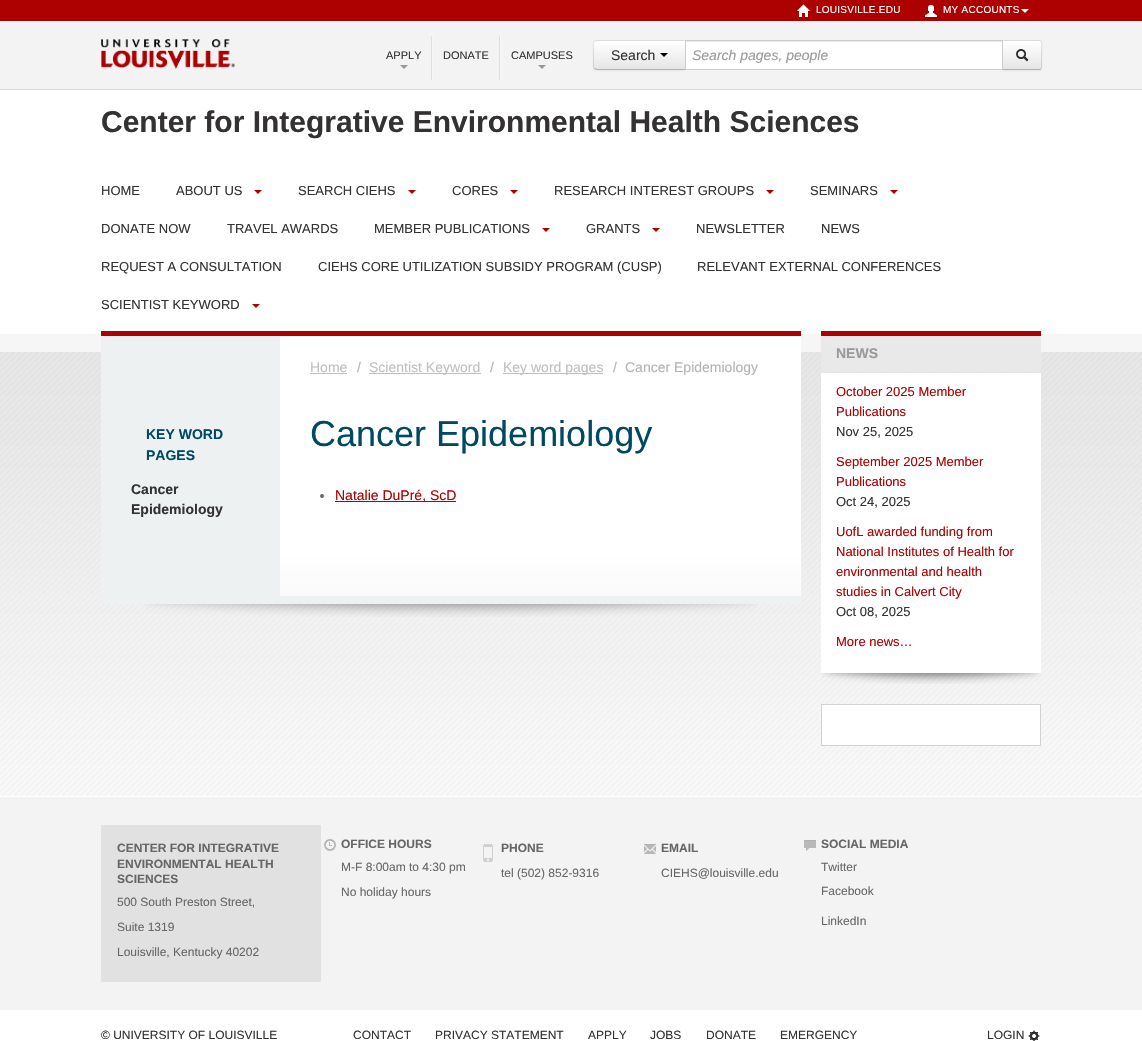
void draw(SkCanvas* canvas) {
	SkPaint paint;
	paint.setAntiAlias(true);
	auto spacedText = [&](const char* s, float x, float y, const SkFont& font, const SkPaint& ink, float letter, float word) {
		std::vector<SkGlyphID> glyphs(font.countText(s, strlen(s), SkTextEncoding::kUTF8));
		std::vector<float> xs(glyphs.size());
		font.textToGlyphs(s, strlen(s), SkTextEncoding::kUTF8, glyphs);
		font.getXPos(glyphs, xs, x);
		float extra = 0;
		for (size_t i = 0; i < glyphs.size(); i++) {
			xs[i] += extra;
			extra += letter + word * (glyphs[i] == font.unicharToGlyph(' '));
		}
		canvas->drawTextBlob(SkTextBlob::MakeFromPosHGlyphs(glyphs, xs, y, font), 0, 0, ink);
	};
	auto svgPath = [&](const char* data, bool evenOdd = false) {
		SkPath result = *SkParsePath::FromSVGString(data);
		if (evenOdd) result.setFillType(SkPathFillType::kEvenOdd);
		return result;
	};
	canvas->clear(0xffffffff);
	canvas->drawImageRect(SkImages::DeferredFromEncodedData(SkData::MakeFromFileName("img1.png")), SkRect::MakeXYWH(0, 334, 1142, 462), SkSamplingOptions());
	paint.setColor(0xffad0000);
	canvas->drawRect(SkRect::MakeXYWH(0, 0, 1142, 21), paint);
	canvas->drawImageRect(SkImages::DeferredFromEncodedData(SkData::MakeFromFileName("img2.png")), SkRect::MakeXYWH(797, 4, 13, 14), SkSamplingOptions());
	SkFont f1(fontMgr->matchFamilyStyle("Liberation Sans", SkFontStyle::Normal()), 10);
	f1.setSubpixel(true);
	paint.setColor(0xffffffff);
	spacedText("LOUISVILLE.EDU", 816, 13, f1, paint, 0.25, 0);
	canvas->drawImageRect(SkImages::DeferredFromEncodedData(SkData::MakeFromFileName("img3.png")), SkRect::MakeXYWH(925, 5, 12, 13), SkSamplingOptions());
	spacedText("MY ACCOUNTS", 943, 13, f1, paint, 0.25, 0);
	canvas->drawPath(svgPath("M1021 9H1029L1025 13Z"), paint);
	paint.setColor(0xfff3f3f3);
	canvas->drawRect(SkRect::MakeXYWH(0, 22, 1142, 67), paint);
	paint.setColor(0xffdbdbdb);
	canvas->drawRect(SkRect::MakeXYWH(0, 89, 1142, 1), paint);
	canvas->drawImageRect(SkImages::DeferredFromEncodedData(SkData::MakeFromFileName("img4.png")), SkRect::MakeXYWH(101, 39, 134, 30), SkSamplingOptions());
	SkFont f2(fontMgr->matchFamilyStyle("Liberation Sans", SkFontStyle::Normal()), 11);
	f2.setSubpixel(true);
	paint.setColor(0xff333131);
	canvas->drawString("APPLY", 386, 59, f2, paint);
	paint.setColor(0xff999999);
	canvas->drawPath(svgPath("M400 65H408L404 69Z"), paint);
	paint.setColor(0xffdfdfdf);
	canvas->drawRect(SkRect::MakeXYWH(431, 36, 1, 44), paint);
	paint.setColor(0xfff6f6f6);
	canvas->drawRect(SkRect::MakeXYWH(432, 36, 1, 44), paint);
	paint.setColor(0xff333131);
	canvas->drawString("DONATE", 443, 59, f2, paint);
	paint.setColor(0xffdfdfdf);
	canvas->drawRect(SkRect::MakeXYWH(499, 36, 1, 44), paint);
	paint.setColor(0xfff6f6f6);
	canvas->drawRect(SkRect::MakeXYWH(500, 36, 1, 44), paint);
	paint.setColor(0xff333131);
	canvas->drawString("CAMPUSES", 511, 59, f2, paint);
	paint.setColor(0xff999999);
	canvas->drawPath(svgPath("M538 65H546L542 69Z"), paint);
	paint.setColor(0x0d000000);
	paint.setMaskFilter(SkMaskFilter::MakeBlur(kNormal_SkBlurStyle, 1));
	canvas->drawRoundRect(SkRect::MakeXYWH(593, 41, 93, 30), 4, 4, paint);
	paint.setMaskFilter(nullptr);
	paint.setColor(0xfff5f5f5);
	canvas->drawPath(svgPath("M597 40H686V70H597C595 70 593 68 593 66V44C593 42 595 40 597 40Z"), paint);
	canvas->save();
	canvas->clipPath(svgPath("M597 40H686V70H597C595 70 593 68 593 66V44C593 42 595 40 597 40Z"), true);
	{
		const SkColor colors[] = {0xffffffff, 0xffe6e6e6};
		const float stops[] = {0, 1};
		const SkPoint ends[] = {{640, 41}, {640, 69}};
		paint.setShader(SkGradientShader::MakeLinear(ends, colors, stops, 2, SkTileMode::kClamp));
		paint.setAlpha(255);
	}
	canvas->drawRect(SkRect::MakeXYWH(593, 41, 92, 28), paint);
	canvas->restore();
	paint.setShader(nullptr);
	paint.setColor(0x1a000000);
	canvas->drawPath(svgPath("M597 40L594 41L595 42L597 41H685L686 40Z"), paint);
	paint.setColor(0xffb3b3b3);
	canvas->drawPath(svgPath("M686 70L685 69H597L595 68L594 69L597 70Z"), paint);
	paint.setColor(0x1a000000);
	canvas->drawPath(svgPath("M593 44V66C593 67 593.5 68 594 69L595 68C594 68 594 67 594 66V44C594 43 594 42 595 42L594 41C593.5 42 593 43 593 44Z"), paint);
	SkFont f3(fontMgr->matchFamilyStyle("Liberation Sans", SkFontStyle::Normal()), 14);
	f3.setSubpixel(true);
	paint.setColor(0xff333131);
	canvas->drawString("Search", 611, 60, f3, paint);
	paint.setColor(0xff000000);
	canvas->drawPath(svgPath("M660 53H668L664 57Z"), paint);
	paint.setColor(0x0d000000);
	paint.setMaskFilter(SkMaskFilter::MakeBlur(kNormal_SkBlurStyle, 1));
	canvas->drawRoundRect(SkRect::MakeXYWH(1002, 41, 40, 30), 3, 3, paint);
	paint.setMaskFilter(nullptr);
	paint.setColor(0xffffffff);
	canvas->drawRect(SkRect::MakeXYWH(686, 42, 316, 27), paint);
	paint.setColor(0xffececec);
	canvas->drawRect(SkRect::MakeXYWH(686, 41, 316, 1), paint);
	canvas->save();
	canvas->clipPath(svgPath("M1002 40H1039C1040.5 40 1042 41.5 1042 43V67C1042 68.5 1040.5 70 1039 70H1002Z"), true);
	{
		const SkColor colors[] = {0xffffffff, 0xffe6e6e6};
		const float stops[] = {0, 1};
		const SkPoint ends[] = {{1022, 41}, {1022, 69}};
		paint.setShader(SkGradientShader::MakeLinear(ends, colors, stops, 2, SkTileMode::kClamp));
		paint.setAlpha(255);
	}
	canvas->drawRect(SkRect::MakeXYWH(1003, 41, 39, 28), paint);
	canvas->restore();
	paint.setShader(nullptr);
	paint.setColor(0xffdcdcdc);
	canvas->drawPath(svgPath("M1002 40L1003 41H1039L1040.5 41.5L1041 41C1041 40 1040 40 1039 40Z"), paint);
	paint.setColor(0x1a000000);
	canvas->drawPath(svgPath("M1042 67V43C1042 42 1042 41 1041 41L1040.5 41.5C1041 42 1041 42.5 1041 43V67C1041 67.5 1041 68 1040.5 68.5L1041 69C1042 69 1042 68 1042 67Z"), paint);
	paint.setColor(0xffb3b3b3);
	canvas->drawPath(svgPath("M1039 70C1040 70 1041 70 1041 69L1040.5 68.5L1039 69H1003L1002 70Z"), paint);
	paint.setStroke(true);
	paint.setStrokeWidth(1);
	paint.setColor(0xffcccccc);
	canvas->drawRect(SkRect::MakeXYWH(685.5, 40.5, 317, 29), paint);
	SkFont f4(fontMgr->matchFamilyStyle("Liberation Sans", SkFontStyle::Italic()), 14);
	f4.setSubpixel(true);
	paint.setStroke(false);
	paint.setColor(0xff999999);
	canvas->drawString("Search pages, people", 692, 60, f4, paint);
	canvas->drawImageRect(SkImages::DeferredFromEncodedData(SkData::MakeFromFileName("img5.png")), SkRect::MakeXYWH(1016, 49, 13, 13), SkSamplingOptions());
	SkFont f5(fontMgr->matchFamilyStyle("Liberation Sans", SkFontStyle::Bold()), 30);
	f5.setSubpixel(true);
	paint.setColor(0xff333131);
	canvas->drawString("Center for Integrative Environmental Health Sciences", 101, 132, f5, paint);
	SkFont f6(fontMgr->matchFamilyStyle("Liberation Sans", SkFontStyle::Normal()), 13);
	f6.setSubpixel(true);
	canvas->drawString("HOME", 101, 195, f6, paint);
	canvas->drawString("ABOUT US", 176, 195, f6, paint);
	paint.setColor(0xffad0000);
	canvas->drawPath(svgPath("M254 190H262L258 194Z"), paint);
	paint.setColor(0xff333131);
	canvas->drawString("SEARCH CIEHS", 298, 195, f6, paint);
	paint.setColor(0xffad0000);
	canvas->drawPath(svgPath("M408 190H416L412 194Z"), paint);
	paint.setColor(0xff333131);
	canvas->drawString("CORES", 452, 195, f6, paint);
	paint.setColor(0xffad0000);
	canvas->drawPath(svgPath("M510 190H518L514 194Z"), paint);
	paint.setColor(0xff333131);
	canvas->drawString("RESEARCH INTEREST GROUPS", 554, 195, f6, paint);
	paint.setColor(0xffad0000);
	canvas->drawPath(svgPath("M766 190H774L770 194Z"), paint);
	paint.setColor(0xff333131);
	canvas->drawString("SEMINARS", 810, 195, f6, paint);
	paint.setColor(0xffad0000);
	canvas->drawPath(svgPath("M890 190H898L894 194Z"), paint);
	paint.setColor(0xff333131);
	canvas->drawString("DONATE NOW", 101, 233, f6, paint);
	canvas->drawString("TRAVEL AWARDS", 227, 233, f6, paint);
	canvas->drawString("MEMBER PUBLICATIONS", 374, 233, f6, paint);
	paint.setColor(0xffad0000);
	canvas->drawPath(svgPath("M542 228H550L546 232Z"), paint);
	paint.setColor(0xff333131);
	canvas->drawString("GRANTS", 586, 233, f6, paint);
	paint.setColor(0xffad0000);
	canvas->drawPath(svgPath("M652 228H660L656 232Z"), paint);
	paint.setColor(0xff333131);
	canvas->drawString("NEWSLETTER", 696, 233, f6, paint);
	canvas->drawString("NEWS", 821, 233, f6, paint);
	canvas->drawString("REQUEST A CONSULTATION", 101, 271, f6, paint);
	canvas->drawString("CIEHS CORE UTILIZATION SUBSIDY PROGRAM (CUSP)", 318, 271, f6, paint);
	canvas->drawString("RELEVANT EXTERNAL CONFERENCES", 697, 271, f6, paint);
	canvas->drawString("SCIENTIST KEYWORD", 101, 309, f6, paint);
	paint.setColor(0xffad0000);
	canvas->drawPath(svgPath("M252 304H260L256 308Z"), paint);
	canvas->drawRect(SkRect::MakeXYWH(101, 331, 700, 5), paint);
	paint.setColor(0xffedf1f2);
	canvas->drawRect(SkRect::MakeXYWH(101, 336, 700, 268), paint);
	SkFont f7(fontMgr->matchFamilyStyle("Liberation Sans", SkFontStyle::Bold()), 14);
	f7.setSubpixel(true);
	paint.setColor(0xff004963);
	canvas->drawString("KEY WORD", 146, 439, f7, paint);
	canvas->drawString("PAGES", 146, 460, f7, paint);
	paint.setColor(0xff333131);
	canvas->drawString("Cancer", 131, 494, f7, paint);
	canvas->drawString("Epidemiology", 131, 514, f7, paint);
	{
		const SkColor colors[] = {0xfffafafa, 0xffffffff};
		const float stops[] = {0, 0.17};
		const SkPoint ends[] = {{541, 596}, {541, 336}};
		paint.setShader(SkGradientShader::MakeLinear(ends, colors, stops, 2, SkTileMode::kClamp));
		paint.setAlpha(255);
	}
	canvas->drawRect(SkRect::MakeXYWH(280, 336, 521, 260), paint);
	paint.setShader(nullptr);
	paint.setColor(0xffbfbfbf);
	canvas->drawString("Home", 310, 372, f3, paint);
	canvas->drawRect(SkRect::MakeXYWH(310, 373, 37, 1), paint);
	paint.setColor(0xffb3b3b3);
	canvas->drawString("/", 357, 372, f3, paint);
	paint.setColor(0xffbfbfbf);
	canvas->drawRect(SkRect::MakeXYWH(369, 373, 112, 1), paint);
	canvas->drawString("Scientist Keyword", 369, 372, f3, paint);
	paint.setColor(0xffb3b3b3);
	canvas->drawString("/", 490, 372, f3, paint);
	paint.setColor(0xffbfbfbf);
	canvas->drawRect(SkRect::MakeXYWH(503, 373, 100, 1), paint);
	canvas->drawString("Key word pages", 503, 372, f3, paint);
	paint.setColor(0xffb3b3b3);
	canvas->drawString("/", 613, 372, f3, paint);
	canvas->drawString("Cancer Epidemiology", 625, 372, f3, paint);
	SkFont f8(fontMgr->matchFamilyStyle("Liberation Sans", SkFontStyle::Normal()), 36);
	f8.setSubpixel(true);
	paint.setColor(0xff004963);
	canvas->drawString("Cancer Epidemiology", 310, 446, f8, paint);
	paint.setColor(0xff666666);
	canvas->drawCircle(322, 496, 2, paint);
	paint.setColor(0xffad0000);
	canvas->drawRect(SkRect::MakeXYWH(335, 501, 121, 1), paint);
	canvas->drawString("Natalie DuPré, ScD", 335, 500, f3, paint);
	canvas->drawImageRect(SkImages::DeferredFromEncodedData(SkData::MakeFromFileName("img6.png")), SkRect::MakeXYWH(145, 604, 612, 13), SkSamplingOptions());
	canvas->drawRect(SkRect::MakeXYWH(821, 331, 220, 5), paint);
	paint.setColor(0xffe9e9e9);
	canvas->drawRect(SkRect::MakeXYWH(821, 336, 220, 36), paint);
	paint.setColor(0xffffffff);
	canvas->drawRect(SkRect::MakeXYWH(821, 373, 220, 300), paint);
	paint.setColor(0xff999999);
	canvas->drawString("NEWS", 836, 358, f7, paint);
	paint.setColor(0xffad0000);
	canvas->drawString("October 2025 Member", 836, 396, f6, paint);
	canvas->drawString("Publications", 836, 416, f6, paint);
	paint.setColor(0xff333131);
	canvas->drawString("Nov 25, 2025", 836, 436, f6, paint);
	paint.setColor(0xffad0000);
	canvas->drawString("September 2025 Member", 836, 466, f6, paint);
	canvas->drawString("Publications", 836, 486, f6, paint);
	paint.setColor(0xff333131);
	canvas->drawString("Oct 24, 2025", 836, 506, f6, paint);
	paint.setColor(0xffad0000);
	canvas->drawString("UofL awarded funding from", 836, 536, f6, paint);
	canvas->drawString("National Institutes of Health for", 836, 556, f6, paint);
	canvas->drawString("environmental and health", 836, 576, f6, paint);
	canvas->drawString("studies in Calvert City", 836, 596, f6, paint);
	paint.setColor(0xff333131);
	canvas->drawString("Oct 08, 2025", 836, 616, f6, paint);
	paint.setColor(0xffad0000);
	canvas->drawString("More news…", 836, 646, f6, paint);
	canvas->drawImageRect(SkImages::DeferredFromEncodedData(SkData::MakeFromFileName("img7.png")), SkRect::MakeXYWH(821, 673, 220, 11), SkSamplingOptions());
	paint.setColor(0xffffffff);
	canvas->drawRect(SkRect::MakeXYWH(821.5, 704.5, 219, 41), paint);
	paint.setStroke(true);
	paint.setColor(0xffd2d2d2);
	canvas->drawRect(SkRect::MakeXYWH(821.5, 704.5, 219, 41), paint);
	paint.setStroke(false);
	paint.setColor(0xfff3f3f3);
	canvas->drawRect(SkRect::MakeXYWH(0, 797, 1142, 213), paint);
	paint.setColor(0xffe1e1e1);
	canvas->drawRect(SkRect::MakeXYWH(101, 825, 220, 157), paint);
	SkFont f9(fontMgr->matchFamilyStyle("Liberation Sans", SkFontStyle::Bold()), 12);
	f9.setSubpixel(true);
	paint.setColor(0xff666666);
	canvas->drawString("CENTER FOR INTEGRATIVE", 117, 852, f9, paint);
	canvas->drawString("ENVIRONMENTAL HEALTH", 117, 868, f9, paint);
	canvas->drawString("SCIENCES", 117, 883, f9, paint);
	SkFont f10(fontMgr->matchFamilyStyle("Liberation Sans", SkFontStyle::Normal()), 12);
	f10.setSubpixel(true);
	canvas->drawString("500 South Preston Street,", 117, 906, f10, paint);
	canvas->drawString("Suite 1319", 117, 931, f10, paint);
	canvas->drawString("Louisville, Kentucky 40202", 117, 956, f10, paint);
	canvas->drawImageRect(SkImages::DeferredFromEncodedData(SkData::MakeFromFileName("img8.png")), SkRect::MakeXYWH(324, 839, 12, 12), SkSamplingOptions());
	canvas->drawString("OFFICE HOURS", 341, 848, f9, paint);
	canvas->drawString("M-F 8:00am to 4:30 pm", 341, 871, f10, paint);
	canvas->drawString("No holiday hours", 341, 896, f10, paint);
	canvas->drawImageRect(SkImages::DeferredFromEncodedData(SkData::MakeFromFileName("img9.png")), SkRect::MakeXYWH(483, 844, 10, 18), SkSamplingOptions());
	canvas->drawString("PHONE", 501, 852, f9, paint);
	canvas->drawString("tel (502) 852-9316", 501, 877, f10, paint);
	canvas->drawImageRect(SkImages::DeferredFromEncodedData(SkData::MakeFromFileName("img10.png")), SkRect::MakeXYWH(644, 844, 12, 10), SkSamplingOptions());
	canvas->drawString("EMAIL", 661, 852, f9, paint);
	canvas->drawString("CIEHS@louisville.edu", 661, 877, f10, paint);
	canvas->drawImageRect(SkImages::DeferredFromEncodedData(SkData::MakeFromFileName("img11.png")), SkRect::MakeXYWH(804, 840, 12, 11), SkSamplingOptions());
	canvas->drawString("SOCIAL MEDIA", 821, 848, f9, paint);
	canvas->drawString("Twitter", 821, 871, f10, paint);
	canvas->drawString("Facebook", 821, 895, f10, paint);
	canvas->drawString("LinkedIn", 821, 925, f10, paint);
	paint.setColor(0xff333131);
	canvas->drawString("© UNIVERSITY OF LOUISVILLE", 101, 1039, f10, paint);
	canvas->drawString("CONTACT", 353, 1039, f10, paint);
	canvas->drawString("PRIVACY STATEMENT", 435, 1039, f10, paint);
	canvas->drawString("APPLY", 588, 1039, f10, paint);
	canvas->drawString("JOBS", 650, 1039, f10, paint);
	canvas->drawString("DONATE", 706, 1039, f10, paint);
	canvas->drawString("EMERGENCY", 780, 1039, f10, paint);
	canvas->drawString("LOGIN", 987, 1039, f10, paint);
	canvas->drawImageRect(SkImages::DeferredFromEncodedData(SkData::MakeFromFileName("img12.png")), SkRect::MakeXYWH(1028, 1030, 12, 11), SkSamplingOptions());
}
